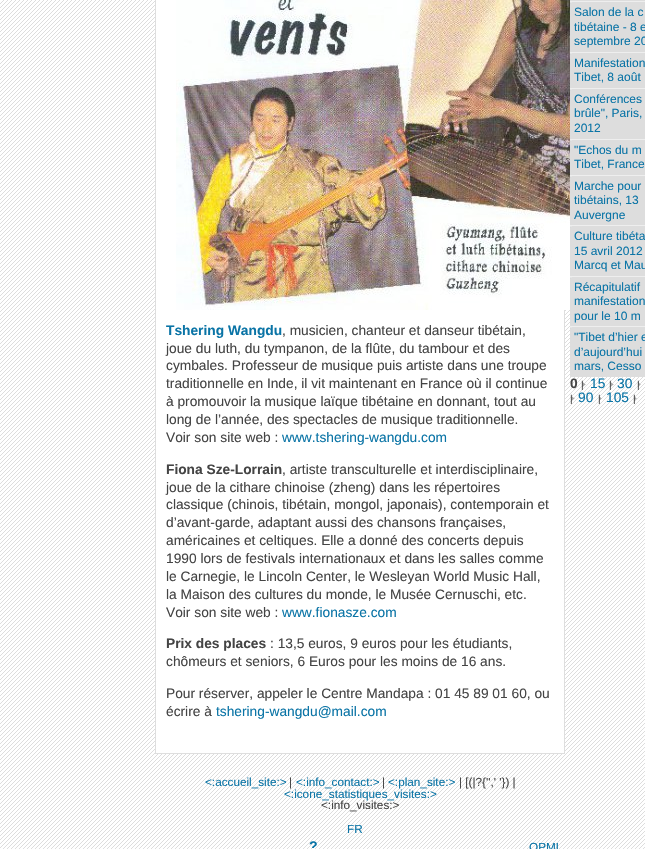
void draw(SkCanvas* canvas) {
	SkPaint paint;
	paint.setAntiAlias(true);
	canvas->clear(0xffdddddd);
	canvas->drawImageRect(SkImages::DeferredFromEncodedData(SkData::MakeFromFileName("img1.png")), SkRect::MakeXYWH(0, 0, 645, 849), SkSamplingOptions());
	paint.setColor(0xffdddddd);
	canvas->drawRect(SkRect::MakeXYWH(570, 0, 75, 1), paint);
	paint.setColor(0xffeeeeee);
	canvas->drawRect(SkRect::MakeXYWH(570, 1, 75, 1), paint);
	paint.setColor(0xffdddddd);
	canvas->drawRect(SkRect::MakeXYWH(570, 2, 75, 50), paint);
	canvas->drawImageRect(SkImages::DeferredFromEncodedData(SkData::MakeFromFileName("img2.png")), SkRect::MakeXYWH(570, 2, 2, 2), SkSamplingOptions());
	SkFont f1(fontMgr->matchFamilyStyle("Liberation Sans", SkFontStyle::Normal()), 12);
	f1.setSubpixel(true);
	paint.setColor(0xff0a74a6);
	canvas->drawString("Salon de la c", 574, 16, f1, paint);
	canvas->drawString("tibétaine - 8 e", 574, 31, f1, paint);
	canvas->drawString("septembre 20", 574, 45, f1, paint);
	paint.setColor(0xffeeeeee);
	canvas->drawRect(SkRect::MakeXYWH(570, 52, 75, 1), paint);
	paint.setColor(0xffdddddd);
	canvas->drawRect(SkRect::MakeXYWH(570, 53, 75, 35), paint);
	canvas->drawImageRect(SkImages::DeferredFromEncodedData(SkData::MakeFromFileName("img2.png")), SkRect::MakeXYWH(570, 53, 2, 2), SkSamplingOptions());
	paint.setColor(0xff0a74a6);
	canvas->drawString("Manifestation", 574, 67, f1, paint);
	canvas->drawString("Tibet, 8 août", 574, 81, f1, paint);
	paint.setColor(0xffeeeeee);
	canvas->drawRect(SkRect::MakeXYWH(570, 88, 75, 1), paint);
	paint.setColor(0xffdddddd);
	canvas->drawRect(SkRect::MakeXYWH(570, 89, 75, 50), paint);
	canvas->drawImageRect(SkImages::DeferredFromEncodedData(SkData::MakeFromFileName("img2.png")), SkRect::MakeXYWH(570, 89, 2, 2), SkSamplingOptions());
	paint.setColor(0xff0a74a6);
	canvas->drawString("Conférences", 574, 103, f1, paint);
	canvas->drawString("brûle\", Paris,", 574, 117, f1, paint);
	canvas->drawString("2012", 574, 132, f1, paint);
	paint.setColor(0xffeeeeee);
	canvas->drawRect(SkRect::MakeXYWH(570, 139, 75, 1), paint);
	paint.setColor(0xffdddddd);
	canvas->drawRect(SkRect::MakeXYWH(570, 140, 75, 35), paint);
	canvas->drawImageRect(SkImages::DeferredFromEncodedData(SkData::MakeFromFileName("img2.png")), SkRect::MakeXYWH(570, 140, 2, 2), SkSamplingOptions());
	paint.setColor(0xff0a74a6);
	canvas->drawString("\"Echos du m", 574, 154, f1, paint);
	canvas->drawString("Tibet, France", 574, 168, f1, paint);
	paint.setColor(0xffeeeeee);
	canvas->drawRect(SkRect::MakeXYWH(570, 175, 75, 1), paint);
	paint.setColor(0xffdddddd);
	canvas->drawRect(SkRect::MakeXYWH(570, 176, 75, 49), paint);
	canvas->drawImageRect(SkImages::DeferredFromEncodedData(SkData::MakeFromFileName("img2.png")), SkRect::MakeXYWH(570, 176, 2, 2), SkSamplingOptions());
	paint.setColor(0xff0a74a6);
	canvas->drawString("Marche pour", 574, 190, f1, paint);
	canvas->drawString("tibétains, 13", 574, 204, f1, paint);
	canvas->drawString("Auvergne", 574, 219, f1, paint);
	paint.setColor(0xffeeeeee);
	canvas->drawRect(SkRect::MakeXYWH(570, 225, 75, 1), paint);
	paint.setColor(0xffdddddd);
	canvas->drawRect(SkRect::MakeXYWH(570, 226, 75, 50), paint);
	canvas->drawImageRect(SkImages::DeferredFromEncodedData(SkData::MakeFromFileName("img2.png")), SkRect::MakeXYWH(570, 226, 2, 2), SkSamplingOptions());
	paint.setColor(0xff0a74a6);
	canvas->drawString("Culture tibéta", 574, 240, f1, paint);
	canvas->drawString("15 avril 2012", 574, 255, f1, paint);
	canvas->drawString("Marcq et Mau", 574, 269, f1, paint);
	paint.setColor(0xffeeeeee);
	canvas->drawRect(SkRect::MakeXYWH(570, 276, 75, 1), paint);
	paint.setColor(0xffdddddd);
	canvas->drawRect(SkRect::MakeXYWH(570, 277, 75, 49), paint);
	canvas->drawImageRect(SkImages::DeferredFromEncodedData(SkData::MakeFromFileName("img2.png")), SkRect::MakeXYWH(570, 277, 2, 2), SkSamplingOptions());
	paint.setColor(0xff0a74a6);
	canvas->drawString("Récapitulatif", 574, 291, f1, paint);
	canvas->drawString("manifestation", 574, 305, f1, paint);
	canvas->drawString("pour le 10 m", 574, 320, f1, paint);
	paint.setColor(0xffeeeeee);
	canvas->drawRect(SkRect::MakeXYWH(570, 326, 75, 1), paint);
	paint.setColor(0xffdddddd);
	canvas->drawRect(SkRect::MakeXYWH(570, 327, 75, 50), paint);
	canvas->drawImageRect(SkImages::DeferredFromEncodedData(SkData::MakeFromFileName("img2.png")), SkRect::MakeXYWH(570, 327, 2, 2), SkSamplingOptions());
	paint.setColor(0xff0a74a6);
	canvas->drawString("\"Tibet d’hier e", 574, 341, f1, paint);
	canvas->drawString("d’aujourd’hui", 574, 356, f1, paint);
	canvas->drawString("mars, Cesso", 574, 370, f1, paint);
	SkFont f2(fontMgr->matchFamilyStyle("Liberation Sans", SkFontStyle::Bold()), 13.75);
	f2.setSubpixel(true);
	paint.setColor(0xff444444);
	canvas->drawString("0", 570, 388, f2, paint);
	canvas->drawImageRect(SkImages::DeferredFromEncodedData(SkData::MakeFromFileName("img3.png")), SkRect::MakeXYWH(582, 382, 4, 5), SkSamplingOptions());
	SkFont f3(fontMgr->matchFamilyStyle("Liberation Sans", SkFontStyle::Normal()), 10);
	f3.setSubpixel(true);
	canvas->drawString("|", 581, 388, f3, paint);
	SkFont f4(fontMgr->matchFamilyStyle("Liberation Sans", SkFontStyle::Normal()), 13.75);
	f4.setSubpixel(true);
	paint.setColor(0xff0a74a6);
	canvas->drawString("15", 590, 388, f4, paint);
	canvas->drawImageRect(SkImages::DeferredFromEncodedData(SkData::MakeFromFileName("img3.png")), SkRect::MakeXYWH(610, 382, 4, 5), SkSamplingOptions());
	paint.setColor(0xff444444);
	canvas->drawString("|", 609, 388, f3, paint);
	paint.setColor(0xff0a74a6);
	canvas->drawString("30", 617, 388, f4, paint);
	canvas->drawImageRect(SkImages::DeferredFromEncodedData(SkData::MakeFromFileName("img4.png")), SkRect::MakeXYWH(637, 382, 4, 5), SkSamplingOptions());
	paint.setColor(0xff444444);
	canvas->drawString("|", 637, 388, f3, paint);
	canvas->drawImageRect(SkImages::DeferredFromEncodedData(SkData::MakeFromFileName("img5.png")), SkRect::MakeXYWH(571, 396, 4, 5), SkSamplingOptions());
	canvas->drawString("|", 570, 402, f3, paint);
	paint.setColor(0xff0a74a6);
	canvas->drawString("90", 578, 402, f4, paint);
	canvas->drawImageRect(SkImages::DeferredFromEncodedData(SkData::MakeFromFileName("img6.png")), SkRect::MakeXYWH(598, 396, 4, 5), SkSamplingOptions());
	paint.setColor(0xff444444);
	canvas->drawString("|", 598, 402, f3, paint);
	paint.setColor(0xff0a74a6);
	canvas->drawString("105", 606, 402, f4, paint);
	canvas->drawImageRect(SkImages::DeferredFromEncodedData(SkData::MakeFromFileName("img7.png")), SkRect::MakeXYWH(633, 396, 4, 5), SkSamplingOptions());
	paint.setColor(0xff444444);
	canvas->drawString("|", 633, 402, f3, paint);
	paint.setColor(0xffffffff);
	canvas->drawRect(SkRect::MakeXYWH(155.5, -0.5, 409, 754), paint);
	paint.setStroke(true);
	paint.setStrokeWidth(1);
	paint.setColor(0xffdedede);
	canvas->drawRect(SkRect::MakeXYWH(155.5, -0.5, 409, 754), paint);
	canvas->drawImageRect(SkImages::DeferredFromEncodedData(SkData::MakeFromFileName("img8.png")), SkRect::MakeXYWH(176, 0, 394, 310), SkSamplingOptions());
	paint.setStroke(false);
	paint.setColor(0xff0a74a6);
	canvas->drawString("Tshering Wangdu", 166, 335, f2, paint);
	paint.setColor(0xff444444);
	canvas->drawString(", musicien, chanteur et danseur tibétain,", 282, 335, f4, paint);
	canvas->drawString("joue du luth, du tympanon, de la flûte, du tambour et des", 166, 353, f4, paint);
	canvas->drawString("cymbales. Professeur de musique puis artiste dans une troupe", 166, 370, f4, paint);
	canvas->drawString("traditionnelle en Inde, il vit maintenant en France où il continue", 166, 388, f4, paint);
	canvas->drawString("à promouvoir la musique laïque tibétaine en donnant, tout au", 166, 406, f4, paint);
	canvas->drawString("long de l’année, des spectacles de musique traditionnelle.", 166, 424, f4, paint);
	canvas->drawString("Voir son site web :", 166, 442, f4, paint);
	paint.setColor(0xff0a74a6);
	canvas->drawString("www.tshering-wangdu.com", 282, 442, f4, paint);
	paint.setColor(0xff444444);
	canvas->drawString("Fiona Sze-Lorrain", 166, 474, f2, paint);
	canvas->drawString(", artiste transculturelle et interdisciplinaire,", 282, 474, f4, paint);
	canvas->drawString("joue de la cithare chinoise (zheng) dans les répertoires", 166, 492, f4, paint);
	canvas->drawString("classique (chinois, tibétain, mongol, japonais), contemporain et", 166, 509, f4, paint);
	canvas->drawString("d’avant-garde, adaptant aussi des chansons françaises,", 166, 527, f4, paint);
	canvas->drawString("américaines et celtiques. Elle a donné des concerts depuis", 166, 545, f4, paint);
	canvas->drawString("1990 lors de festivals internationaux et dans les salles comme", 166, 563, f4, paint);
	canvas->drawString("le Carnegie, le Lincoln Center, le Wesleyan World Music Hall,", 166, 581, f4, paint);
	canvas->drawString("la Maison des cultures du monde, le Musée Cernuschi, etc.", 166, 599, f4, paint);
	canvas->drawString("Voir son site web :", 166, 617, f4, paint);
	paint.setColor(0xff0a74a6);
	canvas->drawString("www.fionasze.com", 282, 617, f4, paint);
	paint.setColor(0xff444444);
	canvas->drawString("Prix des places", 166, 648, f2, paint);
	canvas->drawString(": 13,5 euros, 9 euros pour les étudiants,", 270, 648, f4, paint);
	canvas->drawString("chômeurs et seniors, 6 Euros pour les moins de 16 ans.", 166, 666, f4, paint);
	canvas->drawString("Pour réserver, appeler le Centre Mandapa : 01 45 89 01 60, ou", 166, 698, f4, paint);
	canvas->drawString("écrire à", 166, 716, f4, paint);
	paint.setColor(0xff0a74a6);
	canvas->drawString("tshering-wangdu@mail.com", 216, 716, f4, paint);
	SkFont f5(fontMgr->matchFamilyStyle("Liberation Sans", SkFontStyle::Normal()), 11.75);
	f5.setSubpixel(true);
	canvas->drawString("<:accueil_site:>", 205, 786, f5, paint);
	paint.setColor(0xff444444);
	canvas->drawString("|", 289, 786, f5, paint);
	paint.setColor(0xff0a74a6);
	canvas->drawString("<:info_contact:>", 296, 786, f5, paint);
	paint.setColor(0xff444444);
	canvas->drawString("|", 382, 786, f5, paint);
	paint.setColor(0xff0a74a6);
	canvas->drawString("<:plan_site:>", 388, 786, f5, paint);
	paint.setColor(0xff444444);
	canvas->drawString("| [(|?{'',' '}) |", 459, 786, f5, paint);
	paint.setColor(0xff0a74a6);
	canvas->drawString("<:icone_statistiques_visites:>", 284, 798, f5, paint);
	paint.setColor(0xff444444);
	canvas->drawString("<:info_visites:>", 321, 809, f5, paint);
	paint.setColor(0xff0a74a6);
	canvas->drawString("FR", 347, 833, f5, paint);
	SkFont f6(fontMgr->matchFamilyStyle("Liberation Sans", SkFontStyle::Bold()), 14);
	f6.setSubpixel(true);
	canvas->drawString("?", 309, 851, f6, paint);
	canvas->drawString("OPML", 529, 851, f5, paint);
}
